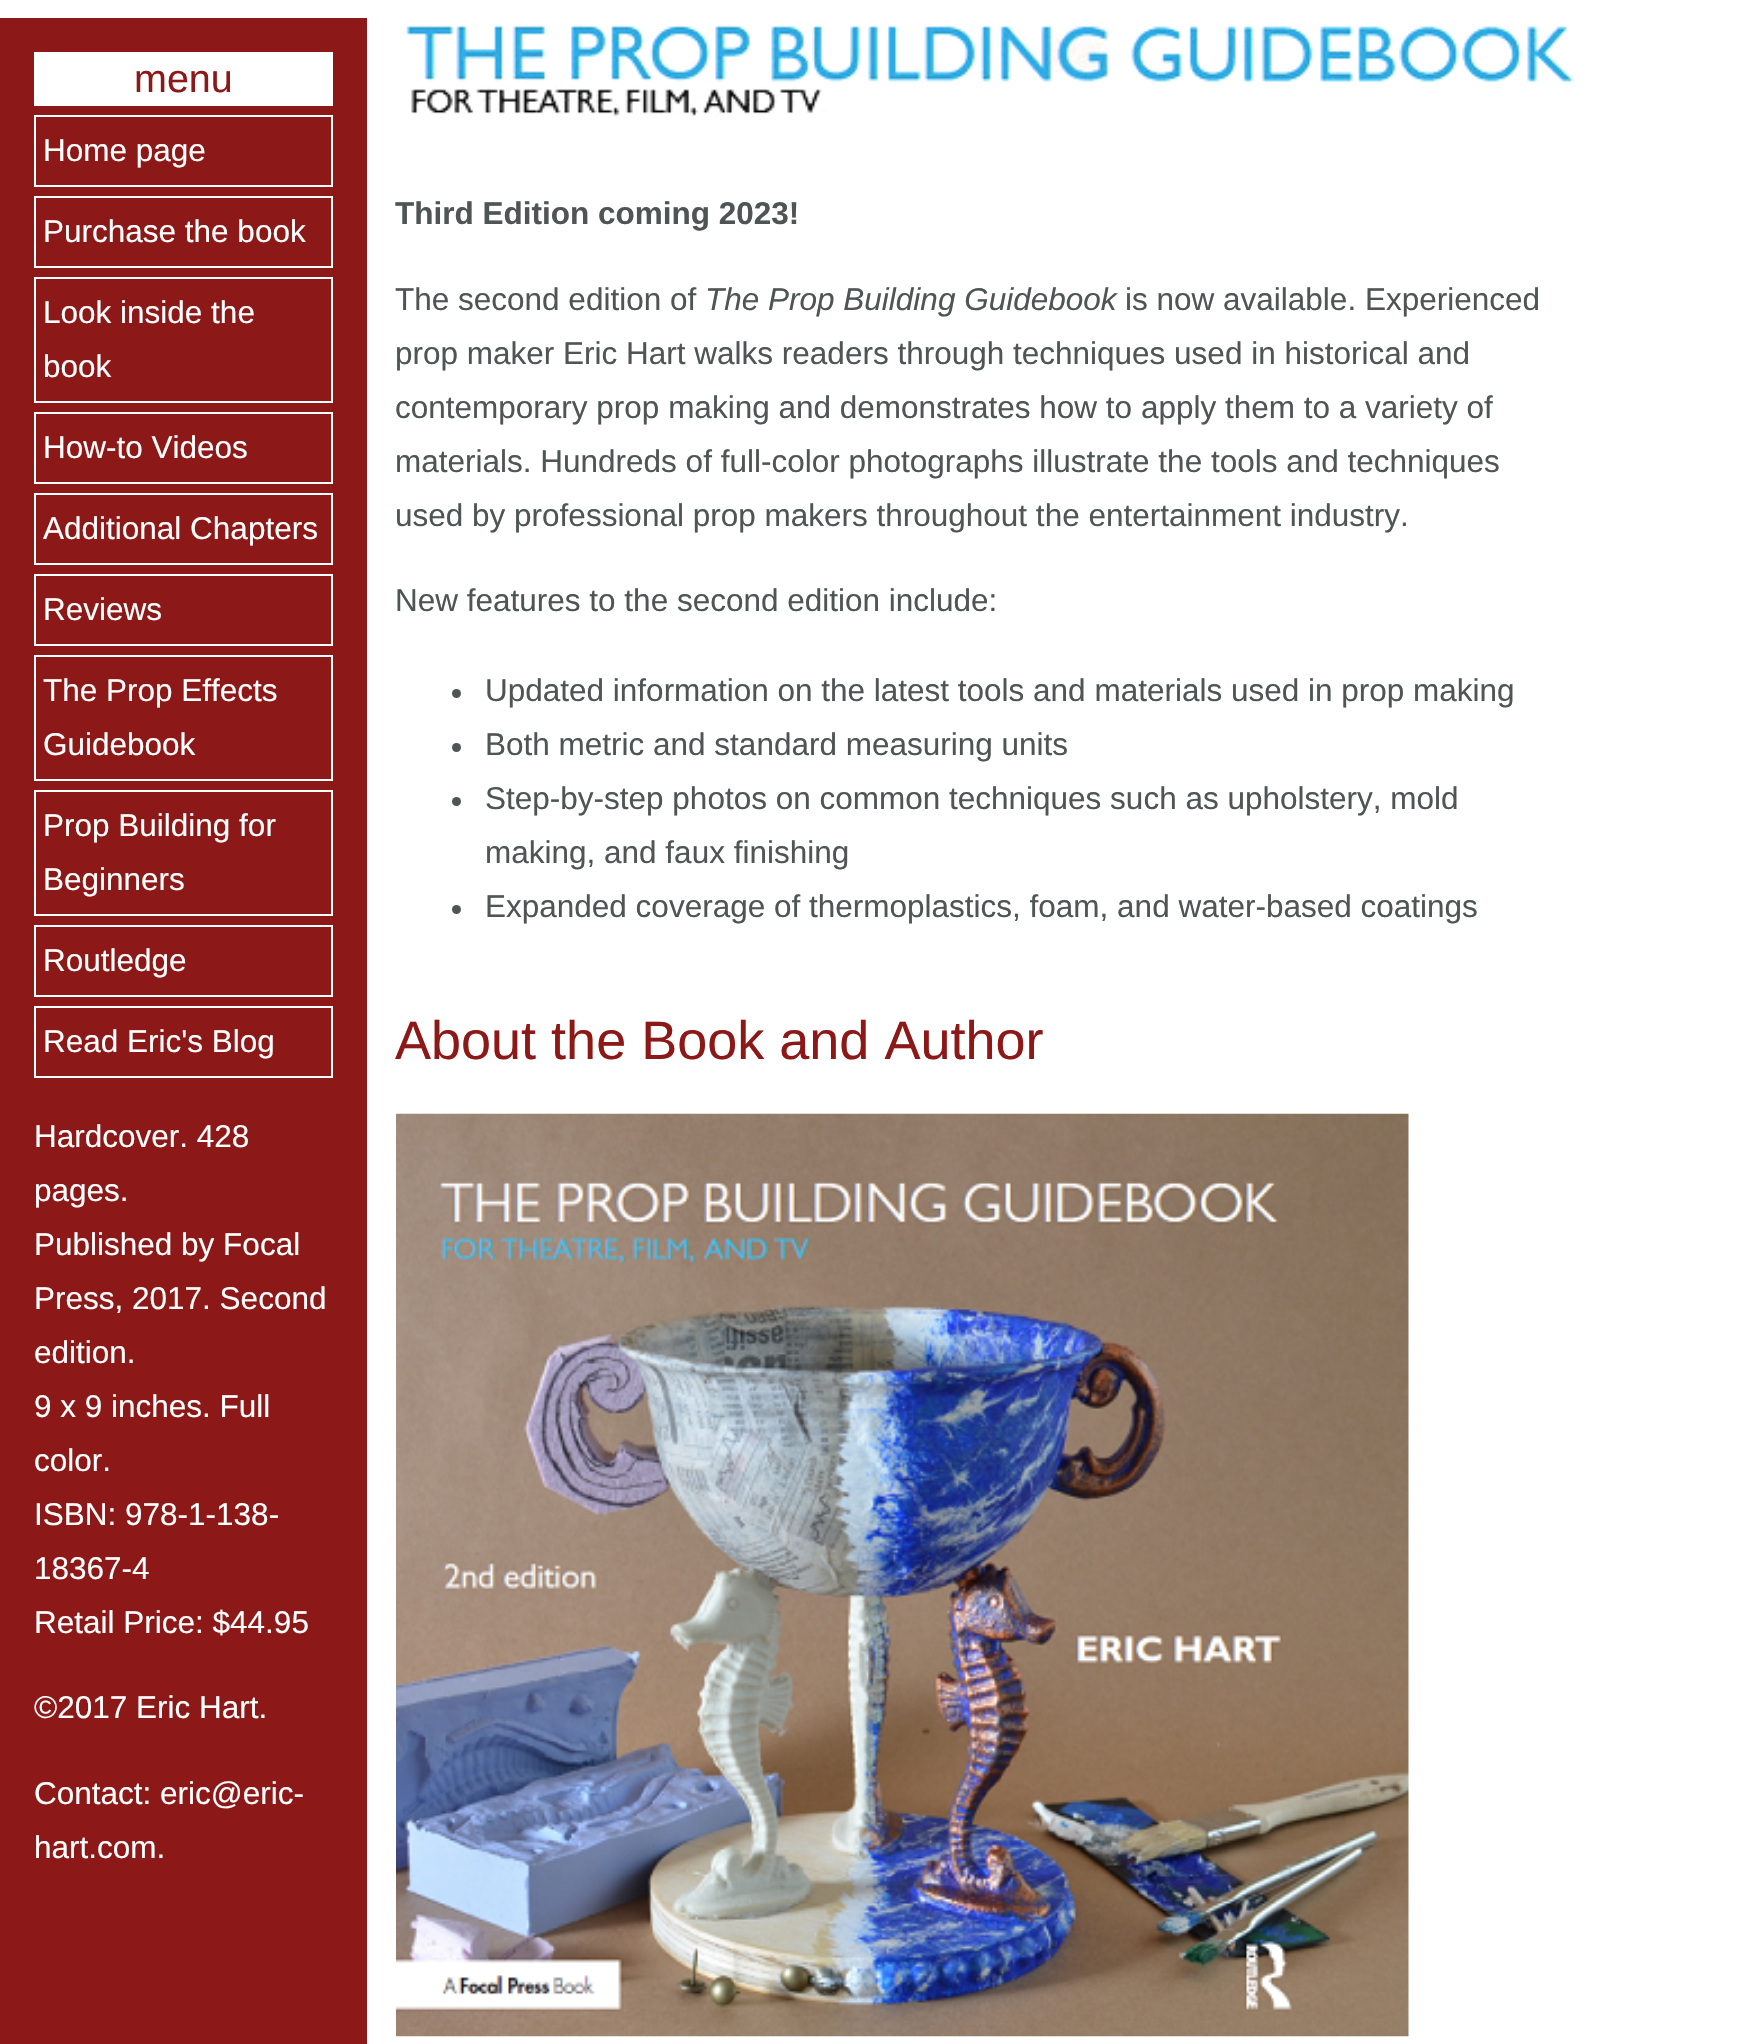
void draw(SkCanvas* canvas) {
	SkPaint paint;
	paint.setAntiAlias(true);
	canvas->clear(0xffffffff);
	paint.setColor(0xff8d1818);
	canvas->drawRect(SkRect::MakeXYWH(0, 18, 367, 2026), paint);
	paint.setColor(0xffffffff);
	canvas->drawRect(SkRect::MakeXYWH(34, 52, 299, 54), paint);
	SkFont f1(fontMgr->matchFamilyStyle("Liberation Sans", SkFontStyle::Normal()), 39.5);
	f1.setSubpixel(true);
	paint.setColor(0xff8d1818);
	canvas->drawString("menu", 134, 92, f1, paint);
	paint.setStroke(true);
	paint.setStrokeWidth(2);
	paint.setColor(0xffffffff);
	canvas->drawRect(SkRect::MakeXYWH(35, 116, 297, 70), paint);
	SkFont f2(fontMgr->matchFamilyStyle("Liberation Sans", SkFontStyle::Normal()), 31.5);
	f2.setSubpixel(true);
	paint.setStroke(false);
	canvas->drawString("Home page", 43, 161, f2, paint);
	paint.setStroke(true);
	canvas->drawRect(SkRect::MakeXYWH(35, 197, 297, 70), paint);
	paint.setStroke(false);
	canvas->drawString("Purchase the book", 43, 242, f2, paint);
	paint.setStroke(true);
	canvas->drawRect(SkRect::MakeXYWH(35, 278, 297, 124), paint);
	paint.setStroke(false);
	canvas->drawString("Look inside the", 43, 323, f2, paint);
	canvas->drawString("book", 43, 377, f2, paint);
	paint.setStroke(true);
	canvas->drawRect(SkRect::MakeXYWH(35, 413, 297, 70), paint);
	paint.setStroke(false);
	canvas->drawString("How-to Videos", 43, 458, f2, paint);
	paint.setStroke(true);
	canvas->drawRect(SkRect::MakeXYWH(35, 494, 297, 70), paint);
	paint.setStroke(false);
	canvas->drawString("Additional Chapters", 43, 539, f2, paint);
	paint.setStroke(true);
	canvas->drawRect(SkRect::MakeXYWH(35, 575, 297, 70), paint);
	paint.setStroke(false);
	canvas->drawString("Reviews", 43, 620, f2, paint);
	paint.setStroke(true);
	canvas->drawRect(SkRect::MakeXYWH(35, 656, 297, 124), paint);
	paint.setStroke(false);
	canvas->drawString("The Prop Effects", 43, 701, f2, paint);
	canvas->drawString("Guidebook", 43, 755, f2, paint);
	paint.setStroke(true);
	canvas->drawRect(SkRect::MakeXYWH(35, 791, 297, 124), paint);
	paint.setStroke(false);
	canvas->drawString("Prop Building for", 43, 836, f2, paint);
	canvas->drawString("Beginners", 43, 890, f2, paint);
	paint.setStroke(true);
	canvas->drawRect(SkRect::MakeXYWH(35, 926, 297, 70), paint);
	paint.setStroke(false);
	canvas->drawString("Routledge", 43, 971, f2, paint);
	paint.setStroke(true);
	canvas->drawRect(SkRect::MakeXYWH(35, 1007, 297, 70), paint);
	paint.setStroke(false);
	canvas->drawString("Read Eric's Blog", 43, 1052, f2, paint);
	canvas->drawString("Hardcover. 428", 34, 1147, f2, paint);
	canvas->drawString("pages.", 34, 1201, f2, paint);
	canvas->drawString("Published by Focal", 34, 1255, f2, paint);
	canvas->drawString("Press, 2017. Second", 34, 1309, f2, paint);
	canvas->drawString("edition.", 34, 1363, f2, paint);
	canvas->drawString("9 x 9 inches. Full", 34, 1417, f2, paint);
	canvas->drawString("color.", 34, 1471, f2, paint);
	canvas->drawString("ISBN: 978-1-138-", 34, 1525, f2, paint);
	canvas->drawString("18367-4", 34, 1579, f2, paint);
	canvas->drawString("Retail Price: $44.95", 34, 1633, f2, paint);
	canvas->drawString("©2017 Eric Hart.", 34, 1718, f2, paint);
	canvas->drawString("Contact: eric@eric-", 34, 1804, f2, paint);
	canvas->drawString("hart.com.", 34, 1858, f2, paint);
	canvas->drawImageRect(SkImages::DeferredFromEncodedData(SkData::MakeFromFileName("img1.png")), SkRect::MakeXYWH(406, 24, 1168, 93), SkSamplingOptions());
	SkFont f3(fontMgr->matchFamilyStyle("Liberation Sans", SkFontStyle::Bold()), 31.5);
	f3.setSubpixel(true);
	paint.setColor(0xff4e5554);
	canvas->drawString("Third Edition coming 2023!", 395, 224, f3, paint);
	canvas->drawString("The second edition of", 395, 310, f2, paint);
	SkFont f4(fontMgr->matchFamilyStyle("Liberation Sans", SkFontStyle::Italic()), 31.5);
	f4.setSubpixel(true);
	canvas->drawString("The Prop Building Guidebook", 705, 310, f4, paint);
	canvas->drawString("is now available. Experienced", 1125, 310, f2, paint);
	canvas->drawString("prop maker Eric Hart walks readers through techniques used in historical and", 395, 364, f2, paint);
	canvas->drawString("contemporary prop making and demonstrates how to apply them to a variety of", 395, 418, f2, paint);
	canvas->drawString("materials. Hundreds of full-color photographs illustrate the tools and techniques", 395, 472, f2, paint);
	canvas->drawString("used by professional prop makers throughout the entertainment industry.", 395, 526, f2, paint);
	canvas->drawString("New features to the second edition include:", 395, 611, f2, paint);
	canvas->drawCircle(456.5, 693.5, 4.5, paint);
	canvas->drawString("Updated information on the latest tools and materials used in prop making", 485, 701, f2, paint);
	canvas->drawCircle(456.5, 747.5, 4.5, paint);
	canvas->drawString("Both metric and standard measuring units", 485, 755, f2, paint);
	canvas->drawCircle(456.5, 801.5, 4.5, paint);
	canvas->drawString("Step-by-step photos on common techniques such as upholstery, mold", 485, 809, f2, paint);
	canvas->drawString("making, and faux finishing", 485, 863, f2, paint);
	canvas->drawCircle(456.5, 909.5, 4.5, paint);
	canvas->drawString("Expanded coverage of thermoplastics, foam, and water-based coatings", 485, 917, f2, paint);
	SkFont f5(fontMgr->matchFamilyStyle("Liberation Sans", SkFontStyle::Normal()), 54);
	f5.setSubpixel(true);
	paint.setColor(0xff8d1818);
	canvas->drawString("About the Book and Author", 395, 1059, f5, paint);
	canvas->drawImageRect(SkImages::DeferredFromEncodedData(SkData::MakeFromFileName("img2.png")), SkRect::MakeXYWH(396, 1113, 1013, 924), SkSamplingOptions());
}
